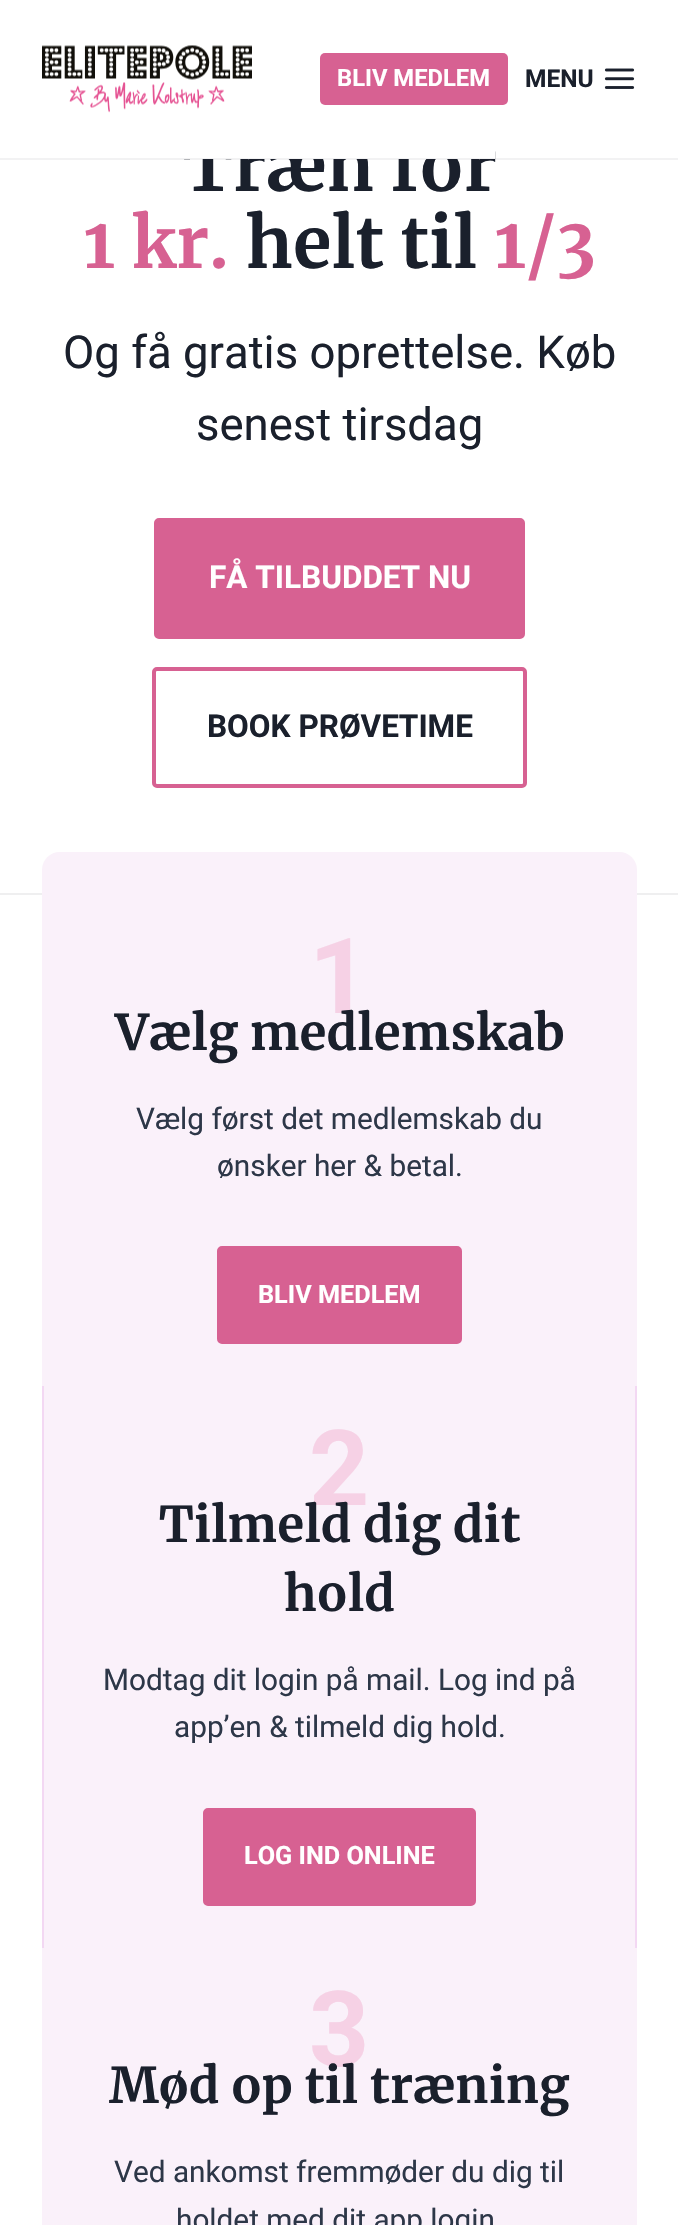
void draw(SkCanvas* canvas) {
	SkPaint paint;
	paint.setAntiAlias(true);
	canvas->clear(0xffffffff);
	SkFont f1(fontMgr->matchFamilyStyle("Merriweather", SkFontStyle::Bold()), 70);
	f1.setSubpixel(true);
	paint.setColor(0xff1a202c);
	canvas->drawString("Træn for", 183, 191, f1, paint);
	paint.setColor(0xffffffff);
	canvas->drawRect(SkRect::MakeXYWH(183, 132, 312, 27), paint);
	paint.setColor(0x0f1a202c);
	canvas->drawRect(SkRect::MakeXYWH(0, 158, 678, 2), paint);
	canvas->drawImageRect(SkImages::DeferredFromEncodedData(SkData::MakeFromFileName("img1.png")), SkRect::MakeXYWH(42, 45, 210, 68), SkSamplingOptions());
	paint.setColor(0xffd76192);
	canvas->drawRoundRect(SkRect::MakeXYWH(320, 53, 188, 52), 5, 5, paint);
	SkFont f2(fontMgr->matchFamilyStyle("Roboto", SkFontStyle::Bold()), 23.75);
	f2.setSubpixel(true);
	paint.setColor(0xffffffff);
	canvas->drawString("BLIV MEDLEM", 337, 86, f2, paint);
	SkFont f3(fontMgr->matchFamilyStyle("Roboto", SkFontStyle::Bold()), 24.5);
	f3.setSubpixel(true);
	paint.setColor(0xff1a202c);
	canvas->drawString("MENU", 525, 87, f3, paint);
	canvas->drawImageRect(SkImages::DeferredFromEncodedData(SkData::MakeFromFileName("img2.png")), SkRect::MakeXYWH(604, 68, 31, 21), SkSamplingOptions());
	paint.setColor(0xffd76192);
	canvas->drawString("1 kr.", 83, 268, f1, paint);
	paint.setColor(0xff1a202c);
	canvas->drawString("helt til", 246, 268, f1, paint);
	paint.setColor(0xffd76192);
	canvas->drawString("1/3", 494, 268, f1, paint);
	SkFont f4(fontMgr->matchFamilyStyle("Roboto", SkFontStyle::Normal()), 45.5);
	f4.setSubpixel(true);
	paint.setColor(0xff1a202c);
	canvas->drawString("Og få gratis oprettelse. Køb", 63, 368, f4, paint);
	canvas->drawString("senest tirsdag", 196, 440, f4, paint);
	paint.setColor(0xffd76192);
	canvas->drawRoundRect(SkRect::MakeXYWH(156, 520, 367, 117), 3, 3, paint);
	paint.setStroke(true);
	paint.setStrokeWidth(4);
	canvas->drawRoundRect(SkRect::MakeXYWH(156, 520, 367, 117), 3, 3, paint);
	SkFont f5(fontMgr->matchFamilyStyle("Roboto", SkFontStyle::Bold()), 31.5);
	f5.setSubpixel(true);
	paint.setStroke(false);
	paint.setColor(0xffffffff);
	canvas->drawString("FÅ TILBUDDET NU", 209, 588, f5, paint);
	paint.setStroke(true);
	paint.setColor(0xffd76192);
	canvas->drawRoundRect(SkRect::MakeXYWH(154, 669, 371, 117), 3, 3, paint);
	paint.setStroke(false);
	paint.setColor(0xff1a202c);
	canvas->drawString("BOOK PRØVETIME", 207, 737, f5, paint);
	paint.setColor(0xffefeff0);
	canvas->drawRect(SkRect::MakeXYWH(0, 893, 678, 2), paint);
	paint.setColor(0xfffaf1fa);
	canvas->drawRoundRect(SkRect::MakeXYWH(42, 852, 595, 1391), 18, 18, paint);
	SkFont f6(fontMgr->matchFamilyStyle("Roboto", SkFontStyle::Bold()), 105);
	f6.setSubpixel(true);
	paint.setColor(0xfff6d1e5);
	canvas->drawString("1", 309, 1013, f6, paint);
	SkFont f7(fontMgr->matchFamilyStyle("Merriweather", SkFontStyle::Bold()), 49);
	f7.setSubpixel(true);
	paint.setColor(0xff1a202c);
	canvas->drawString("Vælg medlemskab", 115, 1050, f7, paint);
	SkFont f8(fontMgr->matchFamilyStyle("Roboto", SkFontStyle::Normal()), 29.75);
	f8.setSubpixel(true);
	paint.setColor(0xff2d3748);
	canvas->drawString("Vælg først det medlemskab du", 136, 1129, f8, paint);
	canvas->drawString("ønsker her & betal.", 217, 1176, f8, paint);
	paint.setColor(0xffd76192);
	canvas->drawRoundRect(SkRect::MakeXYWH(219, 1248, 241, 94), 3, 3, paint);
	paint.setStroke(true);
	canvas->drawRoundRect(SkRect::MakeXYWH(219, 1248, 241, 94), 3, 3, paint);
	SkFont f9(fontMgr->matchFamilyStyle("Roboto", SkFontStyle::Bold()), 25.25);
	f9.setSubpixel(true);
	paint.setStroke(false);
	paint.setColor(0xffffffff);
	canvas->drawString("BLIV MEDLEM", 258, 1303, f9, paint);
	paint.setColor(0xfff3d8f3);
	canvas->drawRect(SkRect::MakeXYWH(635, 1386, 2, 562), paint);
	canvas->drawRect(SkRect::MakeXYWH(42, 1386, 2, 562), paint);
	paint.setColor(0xfff6d1e5);
	canvas->drawString("2", 309, 1505, f6, paint);
	paint.setColor(0xff1a202c);
	canvas->drawString("Tilmeld dig dit", 159, 1542, f7, paint);
	canvas->drawString("hold", 284, 1611, f7, paint);
	paint.setColor(0xff2d3748);
	canvas->drawString("Modtag dit login på mail. Log ind på", 103, 1690, f8, paint);
	canvas->drawString("app’en & tilmeld dig hold.", 174, 1737, f8, paint);
	paint.setColor(0xffd76192);
	canvas->drawRoundRect(SkRect::MakeXYWH(205, 1810, 269, 94), 3, 3, paint);
	paint.setStroke(true);
	canvas->drawRoundRect(SkRect::MakeXYWH(205, 1810, 269, 94), 3, 3, paint);
	paint.setStroke(false);
	paint.setColor(0xffffffff);
	canvas->drawString("LOG IND ONLINE", 244, 1864, f9, paint);
	paint.setColor(0xfff6d1e5);
	canvas->drawString("3", 309, 2066, f6, paint);
	paint.setColor(0xff1a202c);
	canvas->drawString("Mød op til træning", 109, 2103, f7, paint);
	paint.setColor(0xff2d3748);
	canvas->drawString("Ved ankomst fremmøder du dig til", 114, 2182, f8, paint);
	canvas->drawString("holdet med dit app login", 176, 2230, f8, paint);
}
